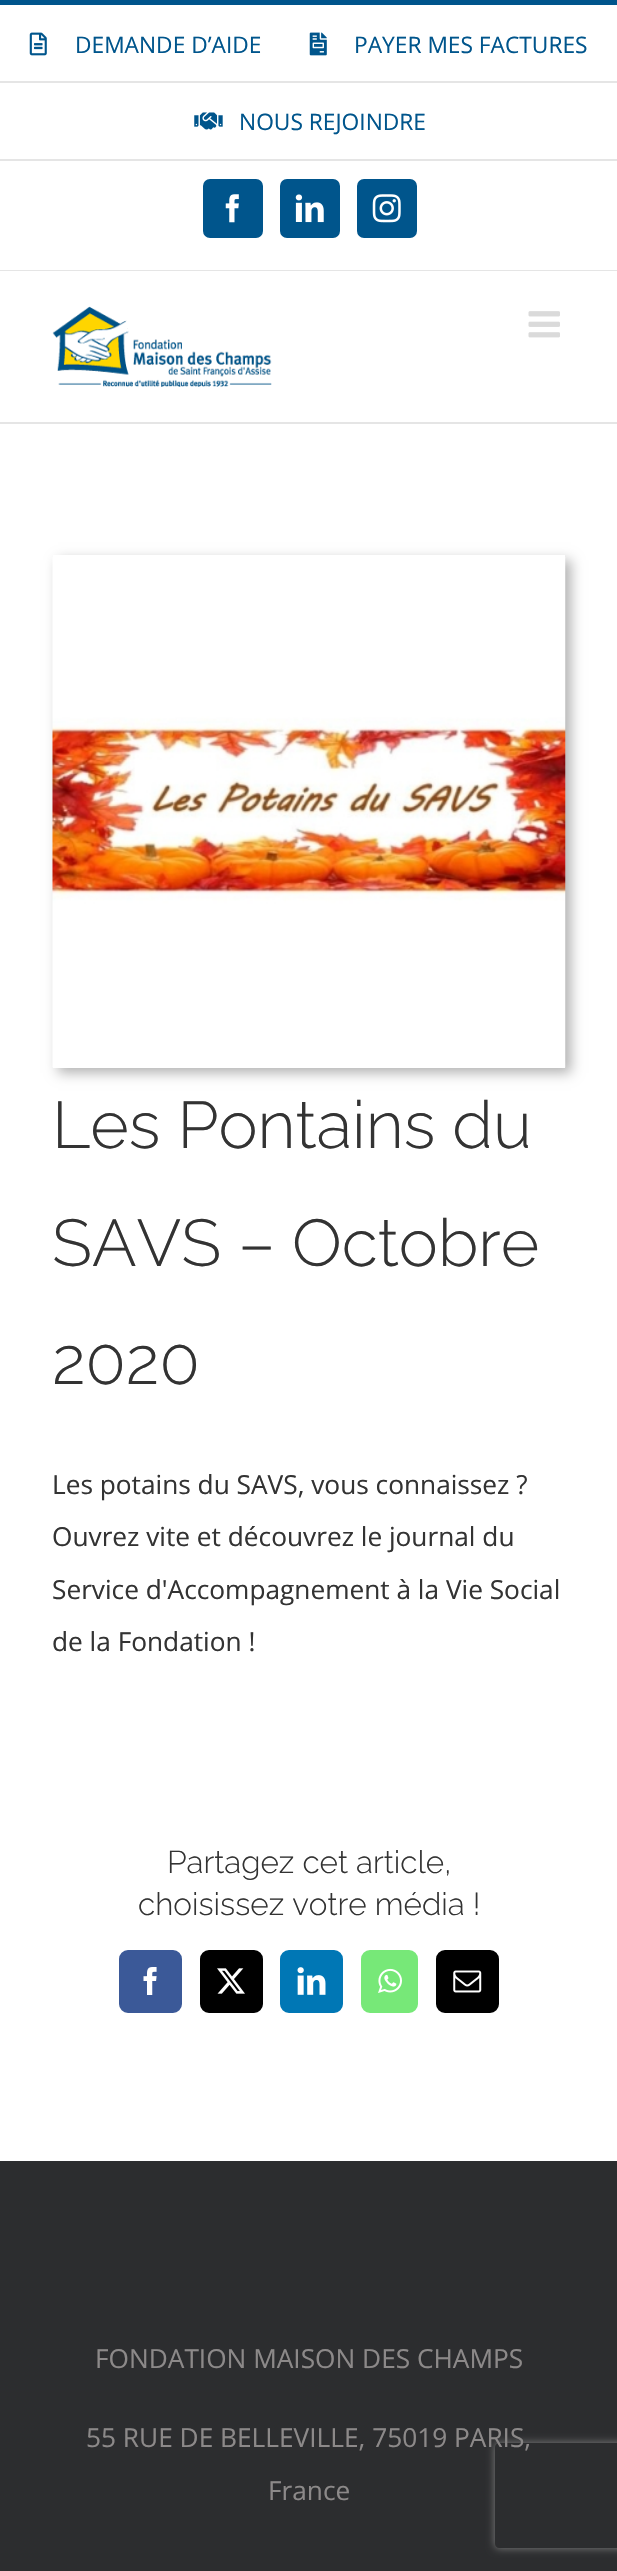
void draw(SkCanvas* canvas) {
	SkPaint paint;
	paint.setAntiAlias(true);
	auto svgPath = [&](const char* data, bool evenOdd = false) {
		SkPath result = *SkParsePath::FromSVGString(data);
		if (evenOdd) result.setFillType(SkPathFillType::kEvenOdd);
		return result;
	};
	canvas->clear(0xffffffff);
	paint.setColor(0xff00558c);
	canvas->drawRect(SkRect::MakeXYWH(0, 0, 617, 5), paint);
	paint.setColor(0xffe5e5e5);
	canvas->drawRect(SkRect::MakeXYWH(0, 270, 617, 1), paint);
	canvas->drawRect(SkRect::MakeXYWH(0, 159, 617, 2), paint);
	canvas->drawImageRect(SkImages::DeferredFromEncodedData(SkData::MakeFromFileName("img1.png")), SkRect::MakeXYWH(29, 32, 18, 24), SkSamplingOptions());
	SkFont f1(fontMgr->matchFamilyStyle("Open Sans", SkFontStyle::Normal()), 22.75);
	f1.setSubpixel(true);
	paint.setColor(0xff00558c);
	canvas->drawString("DEMANDE D’AIDE", 75, 53, f1, paint);
	canvas->drawImageRect(SkImages::DeferredFromEncodedData(SkData::MakeFromFileName("img2.png")), SkRect::MakeXYWH(309, 32, 18, 24), SkSamplingOptions());
	canvas->drawString("PAYER MES FACTURES", 354, 53, f1, paint);
	paint.setColor(0xffe5e5e5);
	canvas->drawRect(SkRect::MakeXYWH(0, 81, 617, 2), paint);
	canvas->drawImageRect(SkImages::DeferredFromEncodedData(SkData::MakeFromFileName("img3.png")), SkRect::MakeXYWH(194, 112, 29, 18), SkSamplingOptions());
	paint.setColor(0xff00558c);
	canvas->drawString("NOUS REJOINDRE", 239, 130, f1, paint);
	canvas->drawRoundRect(SkRect::MakeXYWH(204, 180, 58, 57), 6, 6, paint);
	paint.setStroke(true);
	paint.setStrokeWidth(2);
	canvas->drawRoundRect(SkRect::MakeXYWH(204, 180, 58, 57), 6, 6, paint);
	canvas->drawImageRect(SkImages::DeferredFromEncodedData(SkData::MakeFromFileName("img4.png")), SkRect::MakeXYWH(225, 194, 14, 29), SkSamplingOptions());
	paint.setStroke(false);
	canvas->drawRoundRect(SkRect::MakeXYWH(281, 180, 58, 57), 6, 6, paint);
	paint.setStroke(true);
	canvas->drawRoundRect(SkRect::MakeXYWH(281, 180, 58, 57), 6, 6, paint);
	canvas->drawImageRect(SkImages::DeferredFromEncodedData(SkData::MakeFromFileName("img5.png")), SkRect::MakeXYWH(295, 194, 29, 29), SkSamplingOptions());
	paint.setStroke(false);
	canvas->drawRoundRect(SkRect::MakeXYWH(358, 180, 58, 57), 6, 6, paint);
	paint.setStroke(true);
	canvas->drawRoundRect(SkRect::MakeXYWH(358, 180, 58, 57), 6, 6, paint);
	canvas->drawImageRect(SkImages::DeferredFromEncodedData(SkData::MakeFromFileName("img6.png")), SkRect::MakeXYWH(372, 194, 29, 29), SkSamplingOptions());
	paint.setStroke(false);
	paint.setColor(0xffe5e5e5);
	canvas->drawRect(SkRect::MakeXYWH(0, 422, 617, 2), paint);
	canvas->drawImageRect(SkImages::DeferredFromEncodedData(SkData::MakeFromFileName("img7.png")), SkRect::MakeXYWH(52, 306, 220, 81), SkSamplingOptions());
	canvas->drawImageRect(SkImages::DeferredFromEncodedData(SkData::MakeFromFileName("img8.png")), SkRect::MakeXYWH(528, 311, 32, 27), SkSamplingOptions());
	canvas->save();
	canvas->clipPath(svgPath("M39 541H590V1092H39ZM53 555H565V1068H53Z", true), true);
	paint.setColor(0x4d000000);
	paint.setMaskFilter(SkMaskFilter::MakeBlur(kNormal_SkBlurStyle, 6));
	canvas->drawRect(SkRect::MakeXYWH(58, 560, 513, 513), paint);
	paint.setMaskFilter(nullptr);
	canvas->restore();
	canvas->drawImageRect(SkImages::DeferredFromEncodedData(SkData::MakeFromFileName("img9.png")), SkRect::MakeXYWH(52, 557, 514, 511), SkSamplingOptions());
	SkFont f2(fontMgr->matchFamilyStyle("Raleway", SkFontStyle(300, SkFontStyle::kNormal_Width, SkFontStyle::kUpright_Slant)), 66);
	f2.setSubpixel(true);
	paint.setColor(0xff333333);
	canvas->drawString("Les Pontains du", 52, 1148, f2, paint);
	canvas->drawString("SAVS – Octobre", 52, 1266, f2, paint);
	canvas->drawString("2020", 52, 1384, f2, paint);
	SkFont f3(fontMgr->matchFamilyStyle("Open Sans", SkFontStyle::Normal()), 26.25);
	f3.setSubpixel(true);
	canvas->drawString("Les potains du SAVS, vous connaissez ?", 52, 1494, f3, paint);
	canvas->drawString("Ouvrez vite et découvrez le journal du", 52, 1546, f3, paint);
	canvas->drawString("Service d'Accompagnement à la Vie Social", 52, 1599, f3, paint);
	canvas->drawString("de la Fondation !", 52, 1651, f3, paint);
	SkFont f4(fontMgr->matchFamilyStyle("Raleway", SkFontStyle(300, SkFontStyle::kNormal_Width, SkFontStyle::kUpright_Slant)), 31.5);
	f4.setSubpixel(true);
	canvas->drawString("Partagez cet article,", 167, 1873, f4, paint);
	canvas->drawString("choisissez votre média !", 138, 1915, f4, paint);
	paint.setColor(0xff3b5998);
	canvas->drawRoundRect(SkRect::MakeXYWH(120, 1951, 61, 61), 8, 8, paint);
	paint.setStroke(true);
	canvas->drawRoundRect(SkRect::MakeXYWH(120, 1951, 61, 61), 8, 8, paint);
	canvas->drawImageRect(SkImages::DeferredFromEncodedData(SkData::MakeFromFileName("img10.png")), SkRect::MakeXYWH(143, 1967, 14, 28), SkSamplingOptions());
	paint.setStroke(false);
	paint.setColor(0xff000000);
	canvas->drawRoundRect(SkRect::MakeXYWH(201, 1951, 61, 61), 8, 8, paint);
	paint.setStroke(true);
	canvas->drawRoundRect(SkRect::MakeXYWH(201, 1951, 61, 61), 8, 8, paint);
	canvas->drawImageRect(SkImages::DeferredFromEncodedData(SkData::MakeFromFileName("img11.png")), SkRect::MakeXYWH(217, 1968, 28, 26), SkSamplingOptions());
	paint.setStroke(false);
	paint.setColor(0xff0077b5);
	canvas->drawRoundRect(SkRect::MakeXYWH(281, 1951, 61, 61), 8, 8, paint);
	paint.setStroke(true);
	canvas->drawRoundRect(SkRect::MakeXYWH(281, 1951, 61, 61), 8, 8, paint);
	canvas->drawImageRect(SkImages::DeferredFromEncodedData(SkData::MakeFromFileName("img12.png")), SkRect::MakeXYWH(297, 1967, 29, 28), SkSamplingOptions());
	paint.setStroke(false);
	paint.setColor(0xff77e878);
	canvas->drawRoundRect(SkRect::MakeXYWH(362, 1951, 55, 61), 8, 8, paint);
	paint.setStroke(true);
	canvas->drawRoundRect(SkRect::MakeXYWH(362, 1951, 55, 61), 8, 8, paint);
	canvas->drawImageRect(SkImages::DeferredFromEncodedData(SkData::MakeFromFileName("img13.png")), SkRect::MakeXYWH(378, 1968, 24, 25), SkSamplingOptions());
	paint.setStroke(false);
	paint.setColor(0xff000000);
	canvas->drawRoundRect(SkRect::MakeXYWH(437, 1951, 61, 61), 8, 8, paint);
	paint.setStroke(true);
	canvas->drawRoundRect(SkRect::MakeXYWH(437, 1951, 61, 61), 8, 8, paint);
	canvas->drawImageRect(SkImages::DeferredFromEncodedData(SkData::MakeFromFileName("img14.png")), SkRect::MakeXYWH(453, 1970, 29, 23), SkSamplingOptions());
	paint.setStroke(false);
	paint.setColor(0xff2c2d2f);
	canvas->drawRect(SkRect::MakeXYWH(0, 2161, 617, 410), paint);
	paint.setColor(0xff8c8989);
	canvas->drawString("FONDATION MAISON DES CHAMPS", 95, 2368, f3, paint);
	canvas->drawString("55 RUE DE BELLEVILLE, 75019 PARIS,", 86, 2447, f3, paint);
	canvas->drawString("France", 268, 2500, f3, paint);
	canvas->save();
	canvas->clipPath(svgPath("M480 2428H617V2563H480ZM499 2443H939C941 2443 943 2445 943 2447V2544C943 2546 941 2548 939 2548H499C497 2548 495 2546 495 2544V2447C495 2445 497 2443 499 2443Z", true), true);
	paint.setColor(0xff808080);
	paint.setMaskFilter(SkMaskFilter::MakeBlur(kNormal_SkBlurStyle, 4.5));
	canvas->drawRoundRect(SkRect::MakeXYWH(495, 2443, 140, 105), 4, 4, paint);
	paint.setMaskFilter(nullptr);
	canvas->restore();
}
